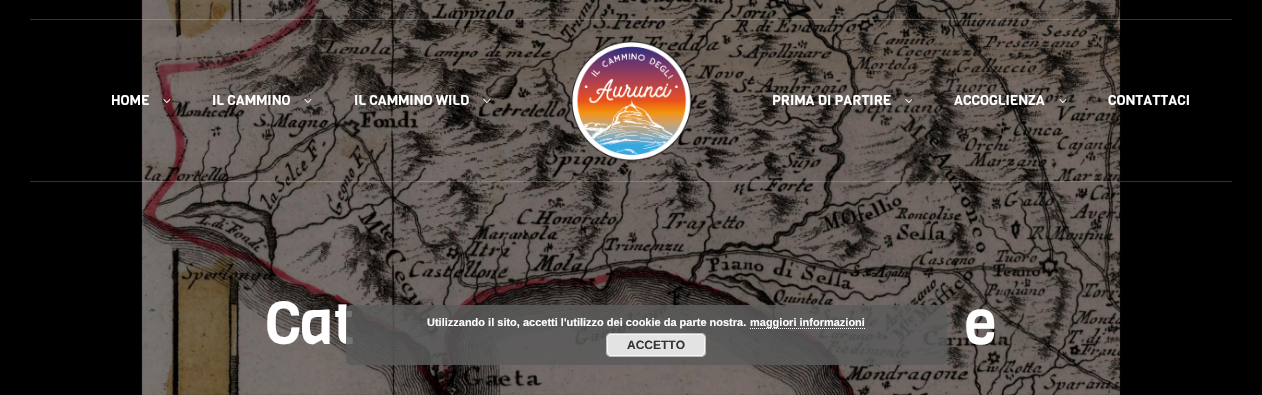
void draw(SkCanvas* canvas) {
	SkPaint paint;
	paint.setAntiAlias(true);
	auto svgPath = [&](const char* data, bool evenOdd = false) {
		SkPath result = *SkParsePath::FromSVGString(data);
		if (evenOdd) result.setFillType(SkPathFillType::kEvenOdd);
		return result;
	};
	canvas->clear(0xff000000);
	canvas->drawImageRect(SkImages::DeferredFromEncodedData(SkData::MakeFromFileName("img7.png")), SkRect::MakeXYWH(141, 0, 980, 395), SkSamplingOptions());
	paint.setColor(0x33ffffff);
	canvas->drawRect(SkRect::MakeXYWH(30, 19, 1202, 1), paint);
	SkFont f1(fontMgr->matchFamilyStyle("Viga", SkFontStyle::Normal()), 14);
	f1.setSubpixel(true);
	paint.setColor(0xffffffff);
	canvas->drawString("HOME", 111, 105, f1, paint);
	canvas->drawImageRect(SkImages::DeferredFromEncodedData(SkData::MakeFromFileName("img1.png")), SkRect::MakeXYWH(163, 99, 8, 4), SkSamplingOptions());
	canvas->drawString("IL CAMMINO", 212, 105, f1, paint);
	canvas->drawImageRect(SkImages::DeferredFromEncodedData(SkData::MakeFromFileName("img2.png")), SkRect::MakeXYWH(304, 99, 8, 4), SkSamplingOptions());
	canvas->drawString("IL CAMMINO WILD", 354, 105, f1, paint);
	canvas->drawImageRect(SkImages::DeferredFromEncodedData(SkData::MakeFromFileName("img3.png")), SkRect::MakeXYWH(483, 99, 8, 4), SkSamplingOptions());
	canvas->drawImageRect(SkImages::DeferredFromEncodedData(SkData::MakeFromFileName("img4.png")), SkRect::MakeXYWH(571, 41, 121, 120), SkSamplingOptions());
	canvas->drawString("PRIMA DI PARTIRE", 772, 105, f1, paint);
	canvas->drawImageRect(SkImages::DeferredFromEncodedData(SkData::MakeFromFileName("img5.png")), SkRect::MakeXYWH(905, 99, 8, 4), SkSamplingOptions());
	canvas->drawString("ACCOGLIENZA", 954, 105, f1, paint);
	canvas->drawImageRect(SkImages::DeferredFromEncodedData(SkData::MakeFromFileName("img6.png")), SkRect::MakeXYWH(1059, 99, 8, 4), SkSamplingOptions());
	canvas->drawString("CONTATTACI", 1108, 105, f1, paint);
	paint.setColor(0x33ffffff);
	canvas->drawRect(SkRect::MakeXYWH(30, 181, 1202, 1), paint);
	SkFont f2(fontMgr->matchFamilyStyle("Viga", SkFontStyle::Normal()), 60);
	f2.setSubpixel(true);
	paint.setColor(0xffffffff);
	canvas->drawString("Cat", 265, 344, f2, paint);
	canvas->drawString("e", 964, 344, f2, paint);
	paint.setColor(0xd95b5b5b);
	canvas->drawRoundRect(SkRect::MakeXYWH(346, 305, 601, 60), 5, 5, paint);
	SkFont f3(fontMgr->matchFamilyStyle("Liberation Sans", SkFontStyle::Bold()), 11);
	f3.setSubpixel(true);
	paint.setColor(0xffffffff);
	canvas->drawString("Utilizzando il sito, accetti l'utilizzo dei cookie da parte nostra.", 427, 326, f3, paint);
	paint.setStroke(true);
	paint.setStrokeWidth(1);
	paint.setPathEffect(SkDashPathEffect::Make({{1, 1}}, 0));
	canvas->drawPath(svgPath("M750 328.5H865"), paint);
	paint.setPathEffect(nullptr);
	paint.setStroke(false);
	canvas->drawString("maggiori informazioni", 750, 326, f3, paint);
	paint.setColor(0xffe3e3e3);
	canvas->drawRoundRect(SkRect::MakeXYWH(606, 333, 100, 24), 5, 5, paint);
	paint.setStroke(true);
	paint.setColor(0xfff6f6f6);
	canvas->drawRoundRect(SkRect::MakeXYWH(607.5, 334.5, 97, 21), 3.5, 3.5, paint);
	paint.setColor(0xffbbbbbb);
	canvas->drawRoundRect(SkRect::MakeXYWH(606.5, 333.5, 99, 23), 4.5, 4.5, paint);
	SkFont f4(fontMgr->matchFamilyStyle("Liberation Sans", SkFontStyle::Bold()), 12);
	f4.setSubpixel(true);
	paint.setStroke(false);
	paint.setColor(0xff333333);
	canvas->drawString("ACCETTO", 627, 349, f4, paint);
}
